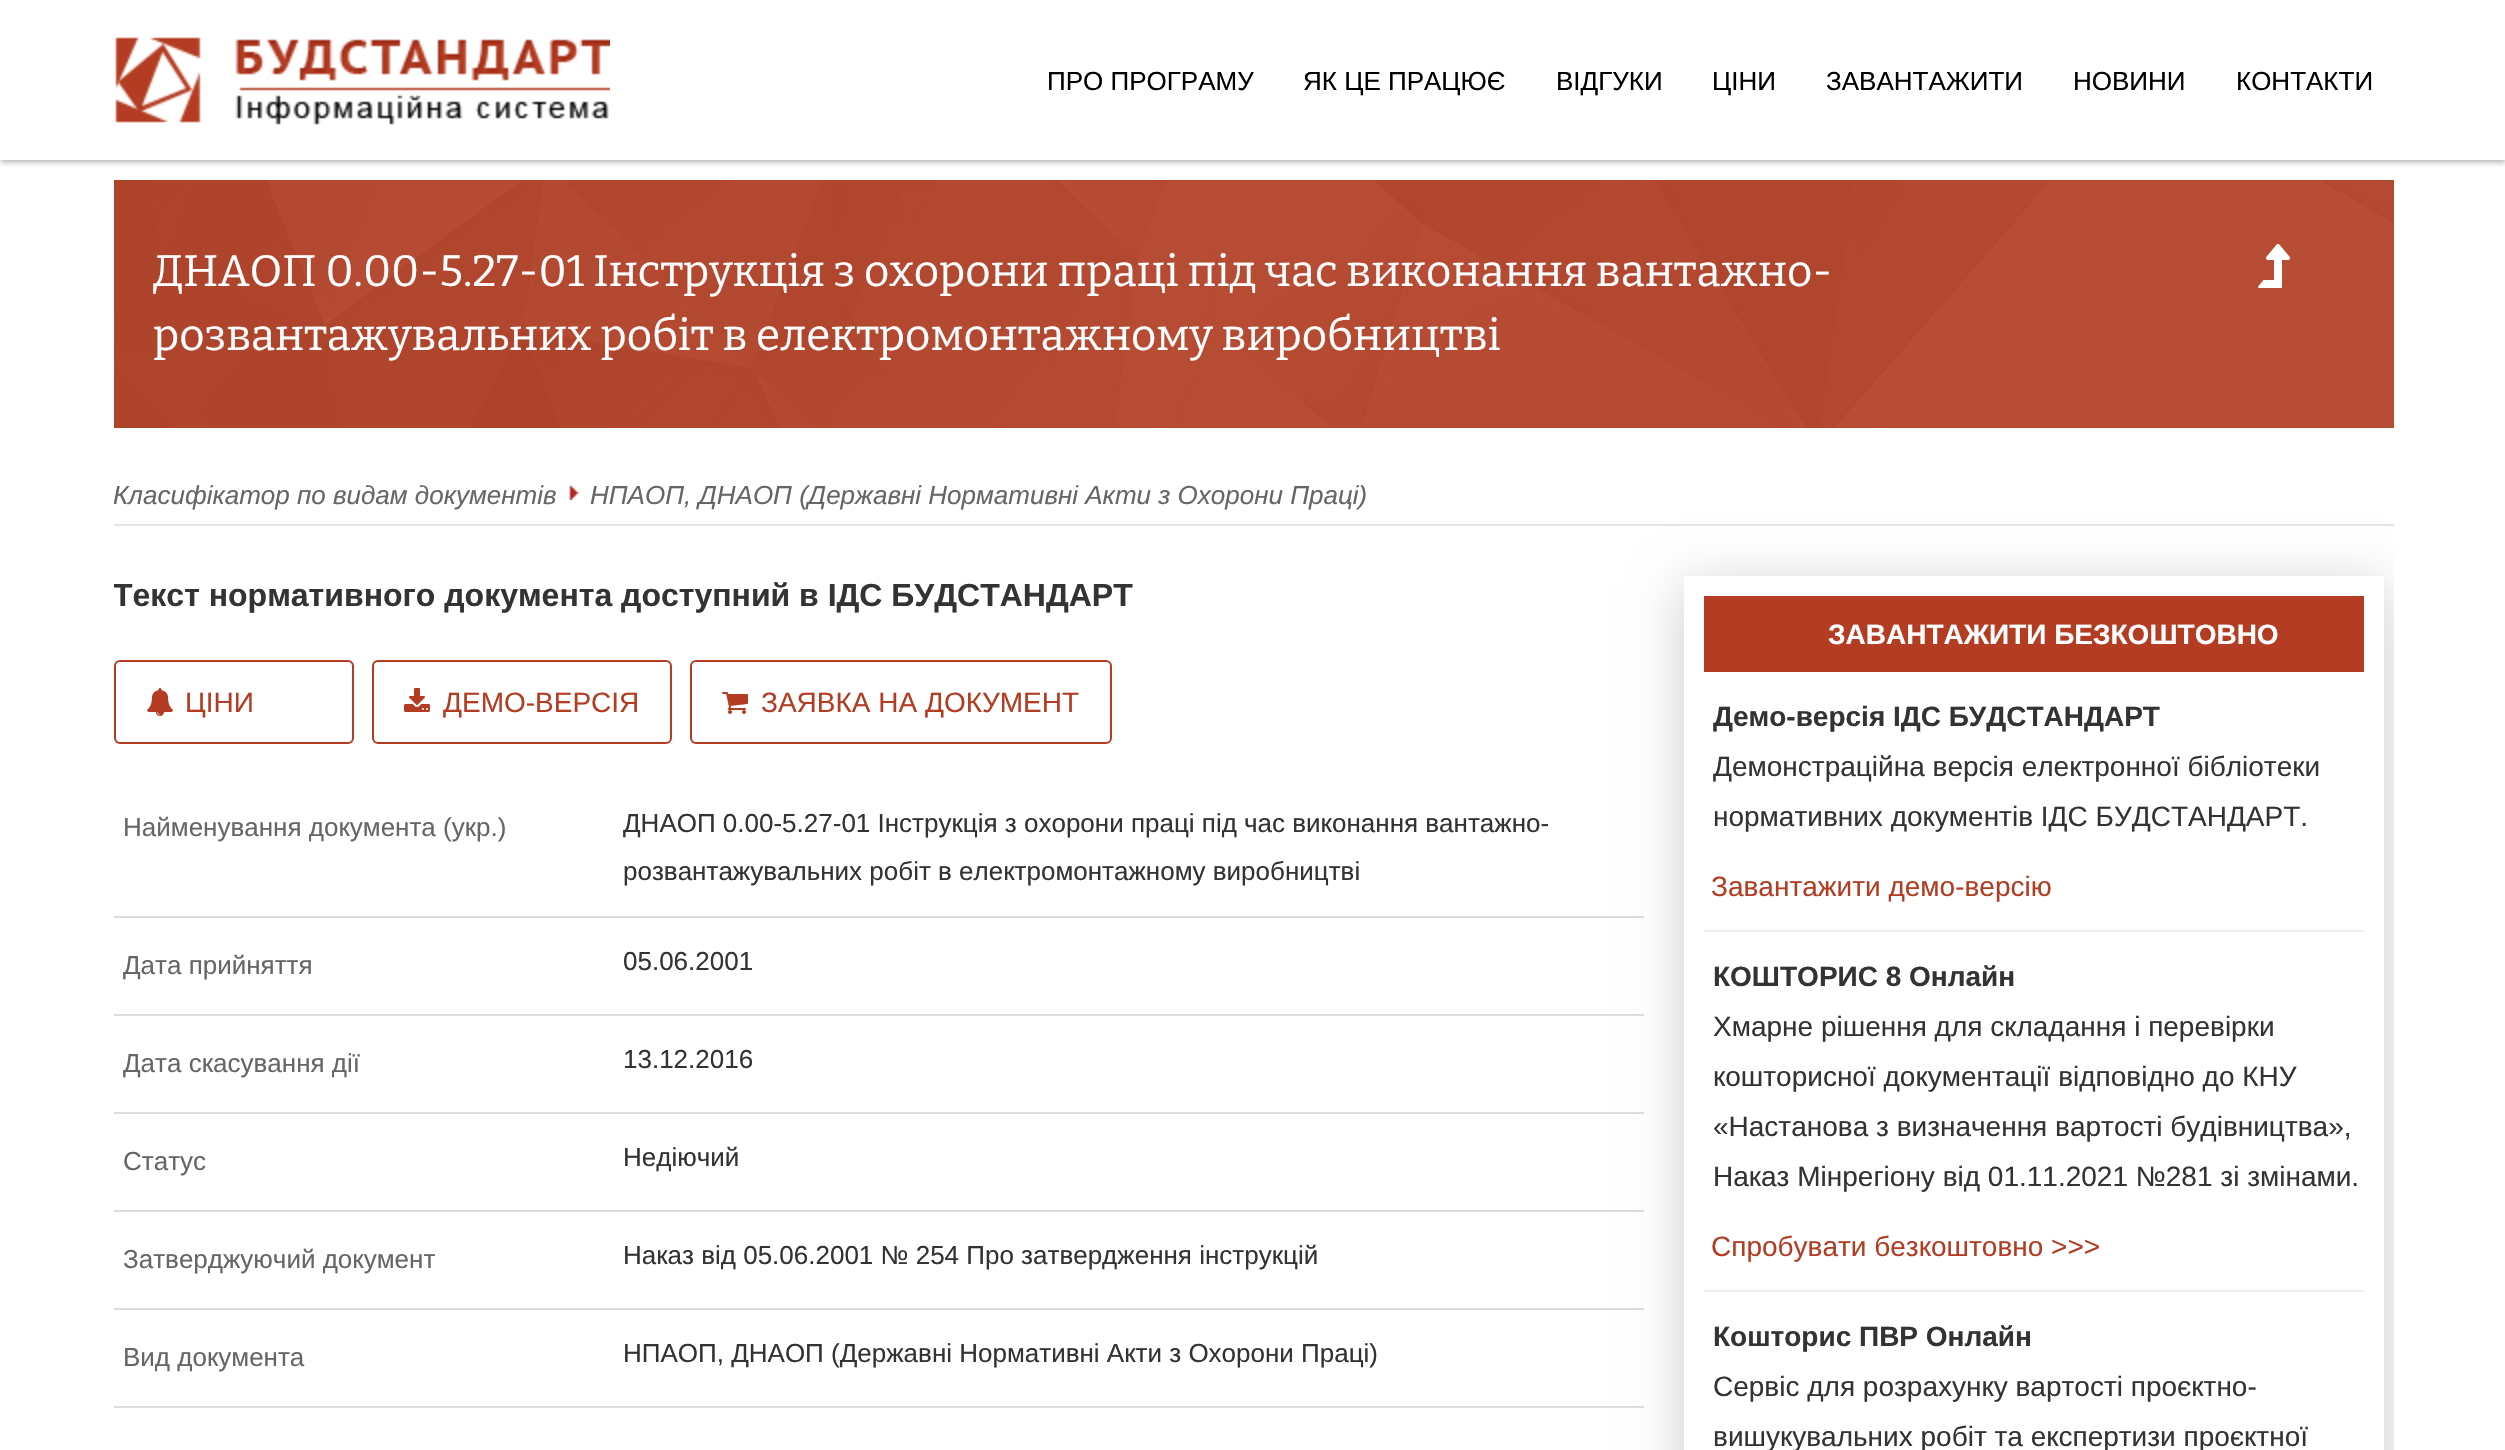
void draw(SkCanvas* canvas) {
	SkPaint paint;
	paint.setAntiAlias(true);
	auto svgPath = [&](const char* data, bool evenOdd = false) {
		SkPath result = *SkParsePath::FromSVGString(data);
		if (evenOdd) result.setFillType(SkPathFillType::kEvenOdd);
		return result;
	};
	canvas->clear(0xffffffff);
	canvas->save();
	canvas->clipRect(SkRect::MakeXYWH(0, 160, 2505, 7));
	paint.setColor(0x66323232);
	paint.setMaskFilter(SkMaskFilter::MakeBlur(kNormal_SkBlurStyle, 3));
	canvas->drawRect(SkRect::MakeXYWH(0, 2, 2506, 160), paint);
	paint.setMaskFilter(nullptr);
	canvas->restore();
	canvas->drawImageRect(SkImages::DeferredFromEncodedData(SkData::MakeFromFileName("img1.png")), SkRect::MakeXYWH(115, 37, 495, 88), SkSamplingOptions());
	SkFont f1(fontMgr->matchFamilyStyle("Liberation Sans", SkFontStyle::Normal()), 26);
	f1.setSubpixel(true);
	paint.setColor(0xff000000);
	canvas->drawString("ПРО ПРОГРАМУ", 1047, 90, f1, paint);
	canvas->drawString("ЯК ЦЕ ПРАЦЮЄ", 1303, 90, f1, paint);
	canvas->drawString("ВІДГУКИ", 1556, 90, f1, paint);
	canvas->drawString("ЦІНИ", 1712, 90, f1, paint);
	canvas->drawString("ЗАВАНТАЖИТИ", 1826, 90, f1, paint);
	canvas->drawString("НОВИНИ", 2073, 90, f1, paint);
	canvas->drawString("КОНТАКТИ", 2236, 90, f1, paint);
	canvas->drawImageRect(SkImages::DeferredFromEncodedData(SkData::MakeFromFileName("img2.png")), SkRect::MakeXYWH(114, 180, 2280, 248), SkSamplingOptions());
	SkFont f2(fontMgr->matchFamilyStyle("Bitter", SkFontStyle::Normal()), 44);
	f2.setSubpixel(true);
	paint.setColor(0xffffffff);
	canvas->drawString("ДНАОП 0.00-5.27-01 Інструкція з охорони праці під час виконання вантажно-", 153, 286, f2, paint);
	canvas->drawString("розвантажувальних робіт в електромонтажному виробництві", 153, 350, f2, paint);
	canvas->drawImageRect(SkImages::DeferredFromEncodedData(SkData::MakeFromFileName("img3.png")), SkRect::MakeXYWH(2258, 244, 32, 44), SkSamplingOptions());
	paint.setColor(0xffe5e5e5);
	canvas->drawRect(SkRect::MakeXYWH(114, 524, 2280, 2), paint);
	SkFont f3(fontMgr->matchFamilyStyle("Liberation Sans", SkFontStyle::Italic()), 26);
	f3.setSubpixel(true);
	paint.setColor(0xff666666);
	canvas->drawString("Класифікатор по видам документів", 113, 504, f3, paint);
	canvas->drawImageRect(SkImages::DeferredFromEncodedData(SkData::MakeFromFileName("img4.png")), SkRect::MakeXYWH(569, 485, 10, 15), SkSamplingOptions());
	canvas->drawString("НПАОП, ДНАОП (Державні Нормативні Акти з Охорони Праці)", 590, 504, f3, paint);
	canvas->save();
	canvas->clipRect(SkRect::MakeXYWH(114, 160, 2280, 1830));
	SkFont f4(fontMgr->matchFamilyStyle("Liberation Sans", SkFontStyle::Bold()), 32);
	f4.setSubpixel(true);
	paint.setColor(0xff333333);
	canvas->drawString("Текст нормативного документа доступний в ІДС БУДСТАНДАРТ", 113, 606, f4, paint);
	canvas->restore();
	paint.setStroke(true);
	paint.setStrokeWidth(2);
	paint.setColor(0xffb33c22);
	canvas->drawRoundRect(SkRect::MakeXYWH(115, 661, 238, 82), 5, 5, paint);
	canvas->drawImageRect(SkImages::DeferredFromEncodedData(SkData::MakeFromFileName("img5.png")), SkRect::MakeXYWH(147, 688, 26, 28), SkSamplingOptions());
	SkFont f5(fontMgr->matchFamilyStyle("Liberation Sans", SkFontStyle::Normal()), 28);
	f5.setSubpixel(true);
	paint.setStroke(false);
	canvas->drawString("ЦІНИ", 185, 712, f5, paint);
	paint.setStroke(true);
	canvas->drawRoundRect(SkRect::MakeXYWH(373, 661, 298, 82), 5, 5, paint);
	canvas->drawImageRect(SkImages::DeferredFromEncodedData(SkData::MakeFromFileName("img6.png")), SkRect::MakeXYWH(404, 688, 26, 24), SkSamplingOptions());
	paint.setStroke(false);
	canvas->drawString("ДЕМО-ВЕРСІЯ", 443, 712, f5, paint);
	paint.setStroke(true);
	canvas->drawRoundRect(SkRect::MakeXYWH(691, 661, 420, 82), 5, 5, paint);
	canvas->drawImageRect(SkImages::DeferredFromEncodedData(SkData::MakeFromFileName("img7.png")), SkRect::MakeXYWH(722, 692, 26, 22), SkSamplingOptions());
	paint.setStroke(false);
	canvas->drawString("ЗАЯВКА НА ДОКУМЕНТ", 761, 712, f5, paint);
	paint.setColor(0xffdddddd);
	canvas->drawRect(SkRect::MakeXYWH(114, 916, 1530, 2), paint);
	paint.setColor(0xff666666);
	canvas->drawString("Найменування документа (укр.)", 123, 836, f1, paint);
	paint.setColor(0xff333333);
	canvas->drawString("ДНАОП 0.00-5.27-01 Інструкція з охорони праці під час виконання вантажно-", 623, 832, f1, paint);
	canvas->drawString("розвантажувальних робіт в електромонтажному виробництві", 623, 880, f1, paint);
	paint.setColor(0xffdddddd);
	canvas->drawRect(SkRect::MakeXYWH(114, 1014, 1530, 2), paint);
	paint.setColor(0xff666666);
	canvas->drawString("Дата прийняття", 123, 974, f1, paint);
	paint.setColor(0xff333333);
	canvas->drawString("05.06.2001", 623, 970, f1, paint);
	paint.setColor(0xffdddddd);
	canvas->drawRect(SkRect::MakeXYWH(114, 1112, 1530, 2), paint);
	paint.setColor(0xff666666);
	canvas->drawString("Дата скасування дії", 123, 1072, f1, paint);
	paint.setColor(0xff333333);
	canvas->drawString("13.12.2016", 623, 1068, f1, paint);
	paint.setColor(0xffdddddd);
	canvas->drawRect(SkRect::MakeXYWH(114, 1210, 1530, 2), paint);
	paint.setColor(0xff666666);
	canvas->drawString("Статус", 123, 1170, f1, paint);
	paint.setColor(0xff333333);
	canvas->drawString("Недіючий", 623, 1166, f1, paint);
	paint.setColor(0xffdddddd);
	canvas->drawRect(SkRect::MakeXYWH(114, 1308, 1530, 2), paint);
	paint.setColor(0xff666666);
	canvas->drawString("Затверджуючий документ", 123, 1268, f1, paint);
	paint.setColor(0xff333333);
	canvas->drawString("Наказ від 05.06.2001 № 254 Про затвердження інструкцій", 623, 1264, f1, paint);
	paint.setColor(0xffdddddd);
	canvas->drawRect(SkRect::MakeXYWH(114, 1406, 1530, 2), paint);
	paint.setColor(0xff666666);
	canvas->drawString("Вид документа", 123, 1366, f1, paint);
	paint.setColor(0xff333333);
	canvas->drawString("НПАОП, ДНАОП (Державні Нормативні Акти з Охорони Праці)", 623, 1362, f1, paint);
	canvas->save();
	canvas->clipRect(SkRect::MakeXYWH(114, 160, 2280, 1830));
	canvas->clipPath(svgPath("M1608 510H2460V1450H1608ZM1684 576H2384V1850H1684Z", true), true);
	paint.setColor(0x33000000);
	paint.setMaskFilter(SkMaskFilter::MakeBlur(kNormal_SkBlurStyle, 25));
	canvas->drawRect(SkRect::MakeXYWH(1684, 586, 700, 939), paint);
	paint.setMaskFilter(nullptr);
	canvas->restore();
	paint.setColor(0xffb33c22);
	canvas->drawRect(SkRect::MakeXYWH(1704, 596, 660, 76), paint);
	SkFont f6(fontMgr->matchFamilyStyle("Liberation Sans", SkFontStyle::Bold()), 28);
	f6.setSubpixel(true);
	paint.setColor(0xffffffff);
	canvas->drawString("ЗАВАНТАЖИТИ БЕЗКОШТОВНО", 1828, 644, f6, paint);
	paint.setColor(0xff333333);
	canvas->drawString("Демо-версія ІДС БУДСТАНДАРТ", 1713, 726, f6, paint);
	canvas->drawString("Демонстраційна версія електронної бібліотеки", 1713, 776, f5, paint);
	canvas->drawString("нормативних документів ІДС БУДСТАНДАРТ.", 1713, 826, f5, paint);
	paint.setColor(0xffb33c22);
	canvas->drawString("Завантажити демо-версію", 1711, 896, f5, paint);
	paint.setColor(0xffeeeeee);
	canvas->drawRect(SkRect::MakeXYWH(1704, 930, 660, 2), paint);
	paint.setColor(0xff333333);
	canvas->drawString("КОШТОРИС 8 Онлайн", 1713, 986, f6, paint);
	canvas->drawString("Хмарне рішення для складання і перевірки", 1713, 1036, f5, paint);
	canvas->drawString("кошторисної документації відповідно до КНУ", 1713, 1086, f5, paint);
	canvas->drawString("«Настанова з визначення вартості будівництва»,", 1713, 1136, f5, paint);
	canvas->drawString("Наказ Мінрегіону від 01.11.2021 №281 зі змінами.", 1713, 1186, f5, paint);
	paint.setColor(0xffb33c22);
	canvas->drawString("Спробувати безкоштовно >>>", 1711, 1256, f5, paint);
	paint.setColor(0xffeeeeee);
	canvas->drawRect(SkRect::MakeXYWH(1704, 1290, 660, 2), paint);
	paint.setColor(0xff333333);
	canvas->drawString("Кошторис ПВР Онлайн", 1713, 1346, f6, paint);
	canvas->drawString("Сервіс для розрахунку вартості проєктно-", 1713, 1396, f5, paint);
	canvas->drawString("вишукувальних робіт та експертизи проєктної", 1713, 1446, f5, paint);
}
